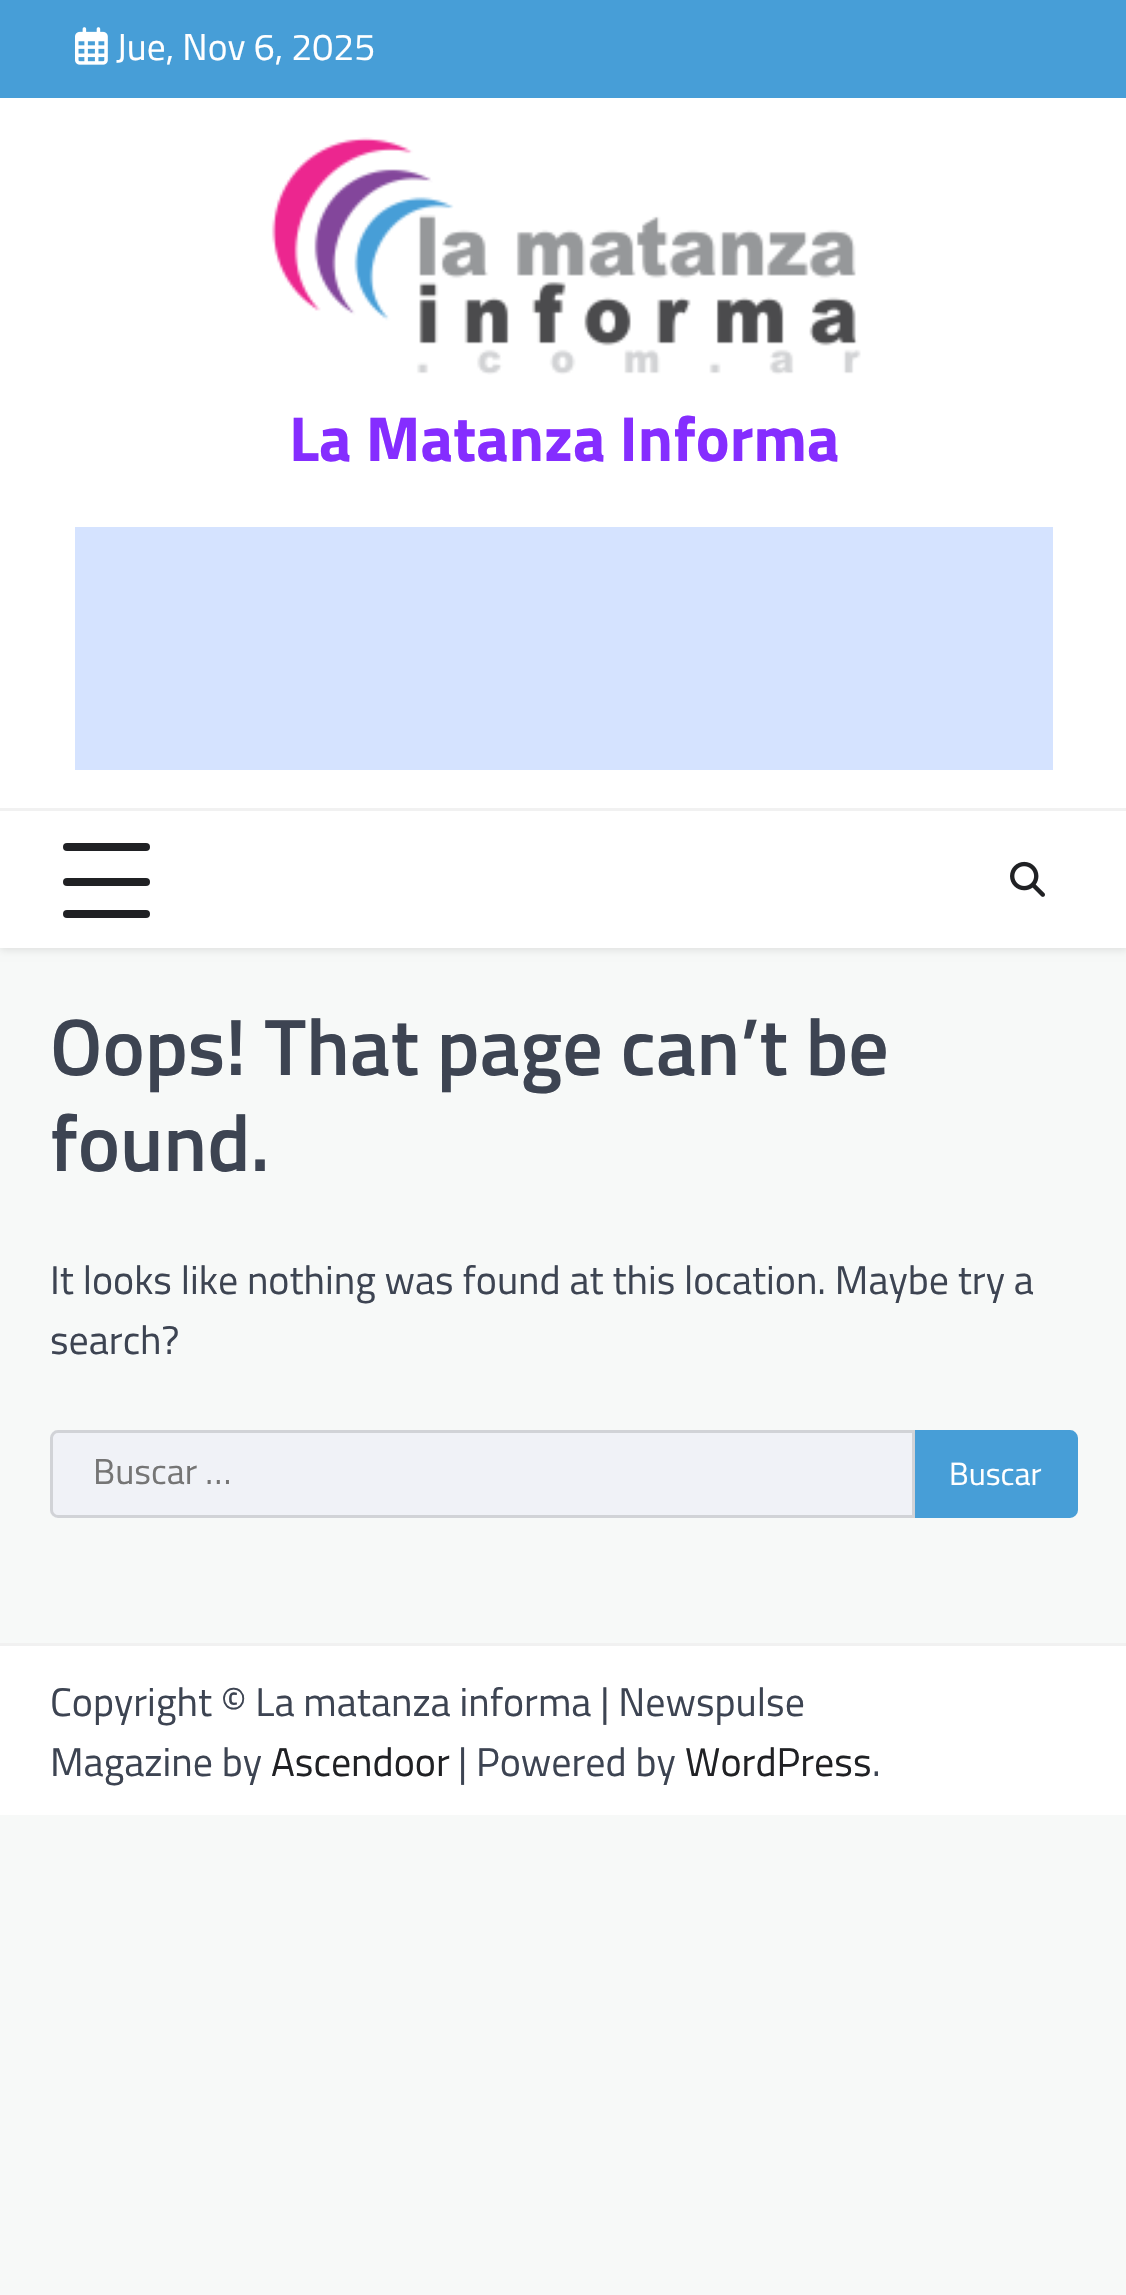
void draw(SkCanvas* canvas) {
	SkPaint paint;
	paint.setAntiAlias(true);
	auto svgPath = [&](const char* data, bool evenOdd = false) {
		SkPath result = *SkParsePath::FromSVGString(data);
		if (evenOdd) result.setFillType(SkPathFillType::kEvenOdd);
		return result;
	};
	canvas->clear(0xfff7f9f8);
	paint.setColor(0x1a000000);
	paint.setMaskFilter(SkMaskFilter::MakeBlur(kNormal_SkBlurStyle, 4));
	canvas->drawRect(SkRect::MakeXYWH(0, 3, 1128, 947), paint);
	paint.setMaskFilter(nullptr);
	paint.setColor(0xff479ed7);
	canvas->drawRect(SkRect::MakeXYWH(0, 0, 1126, 98), paint);
	canvas->drawImageRect(SkImages::DeferredFromEncodedData(SkData::MakeFromFileName("img1.png")), SkRect::MakeXYWH(75, 27, 33, 38), SkSamplingOptions());
	SkFont f1(fontMgr->matchFamilyStyle("Titillium Web", SkFontStyle::Normal()), 37.5);
	f1.setSubpixel(true);
	paint.setColor(0xffffffff);
	canvas->drawString("Jue, Nov 6, 2025", 116, 60, f1, paint);
	canvas->drawRect(SkRect::MakeXYWH(0, 98, 1126, 710), paint);
	canvas->drawImageRect(SkImages::DeferredFromEncodedData(SkData::MakeFromFileName("img2.png")), SkRect::MakeXYWH(271, 137, 590, 238), SkSamplingOptions());
	SkFont f2(fontMgr->matchFamilyStyle("Titillium Web", SkFontStyle::Bold()), 63.75);
	f2.setSubpixel(true);
	paint.setColor(0xff852dff);
	canvas->drawString("La Matanza Informa", 289, 461, f2, paint);
	paint.setColor(0xffd5e3ff);
	canvas->drawRect(SkRect::MakeXYWH(75, 527, 978, 243), paint);
	paint.setColor(0xffffffff);
	canvas->drawRect(SkRect::MakeXYWH(0, 811, 1126, 137), paint);
	paint.setColor(0xfff1f1f1);
	canvas->drawRect(SkRect::MakeXYWH(0, 808, 1126, 3), paint);
	paint.setColor(0xff202124);
	canvas->drawRoundRect(SkRect::MakeXYWH(63, 843, 87, 8), 4, 4, paint);
	canvas->drawRoundRect(SkRect::MakeXYWH(63, 878, 87, 8), 4, 4, paint);
	canvas->drawRoundRect(SkRect::MakeXYWH(63, 910, 87, 8), 4, 4, paint);
	canvas->drawImageRect(SkImages::DeferredFromEncodedData(SkData::MakeFromFileName("img3.png")), SkRect::MakeXYWH(1010, 861, 35, 36), SkSamplingOptions());
	SkFont f3(fontMgr->matchFamilyStyle("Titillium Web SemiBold", SkFontStyle(600, SkFontStyle::kNormal_Width, SkFontStyle::kUpright_Slant)), 80);
	f3.setSubpixel(true);
	paint.setColor(0xff3d4452);
	canvas->drawString("Oops! That page can’t be", 50, 1075, f3, paint);
	canvas->drawString("found.", 50, 1171, f3, paint);
	SkFont f4(fontMgr->matchFamilyStyle("Titillium Web", SkFontStyle::Normal()), 40);
	f4.setSubpixel(true);
	canvas->drawString("It looks like nothing was found at this location. Maybe try a", 50, 1294, f4, paint);
	canvas->drawString("search?", 50, 1354, f4, paint);
	paint.setColor(0xfff0f2f7);
	canvas->drawPath(svgPath("M58 1430H915V1518H58C53.5 1518 50 1514.5 50 1510V1438C50 1433.5 53.5 1430 58 1430Z"), paint);
	paint.setStroke(true);
	paint.setStrokeWidth(3);
	paint.setColor(0x26202124);
	canvas->drawPath(svgPath("M58 1431.5H913.5V1516.5H58C54.5 1516.5 51.5 1513.5 51.5 1510V1438C51.5 1434.5 54.5 1431.5 58 1431.5Z"), paint);
	SkFont f5(fontMgr->matchFamilyStyle("Titillium Web", SkFontStyle::Normal()), 36);
	f5.setSubpixel(true);
	paint.setStroke(false);
	paint.setColor(0xff757575);
	canvas->drawString("Buscar …", 93, 1484, f5, paint);
	paint.setColor(0xff479ed7);
	canvas->drawPath(svgPath("M916.5 1431.5H1070C1073.5 1431.5 1076.5 1434.5 1076.5 1438V1510C1076.5 1513.5 1073.5 1516.5 1070 1516.5H916.5Z"), paint);
	paint.setStroke(true);
	canvas->drawPath(svgPath("M916.5 1431.5H1070C1073.5 1431.5 1076.5 1434.5 1076.5 1438V1510C1076.5 1513.5 1073.5 1516.5 1070 1516.5H916.5Z"), paint);
	SkFont f6(fontMgr->matchFamilyStyle("Titillium Web", SkFontStyle::Normal()), 32);
	f6.setSubpixel(true);
	paint.setStroke(false);
	paint.setColor(0xffffffff);
	canvas->drawString("Buscar", 949, 1485, f6, paint);
	canvas->drawRect(SkRect::MakeXYWH(0, 1646, 1126, 169), paint);
	paint.setColor(0xfff1f1f1);
	canvas->drawRect(SkRect::MakeXYWH(0, 1643, 1126, 3), paint);
	paint.setColor(0xff3d4452);
	canvas->drawString("Copyright © La matanza informa | Newspulse", 50, 1716, f4, paint);
	canvas->drawString("Magazine by", 50, 1776, f4, paint);
	paint.setColor(0xff202124);
	canvas->drawString("Ascendoor", 271, 1776, f4, paint);
	paint.setColor(0xff3d4452);
	canvas->drawString("| Powered by", 458, 1776, f4, paint);
	paint.setColor(0xff202124);
	canvas->drawString("WordPress", 685, 1776, f4, paint);
	paint.setColor(0xff3d4452);
	canvas->drawString(".", 872, 1776, f4, paint);
}
